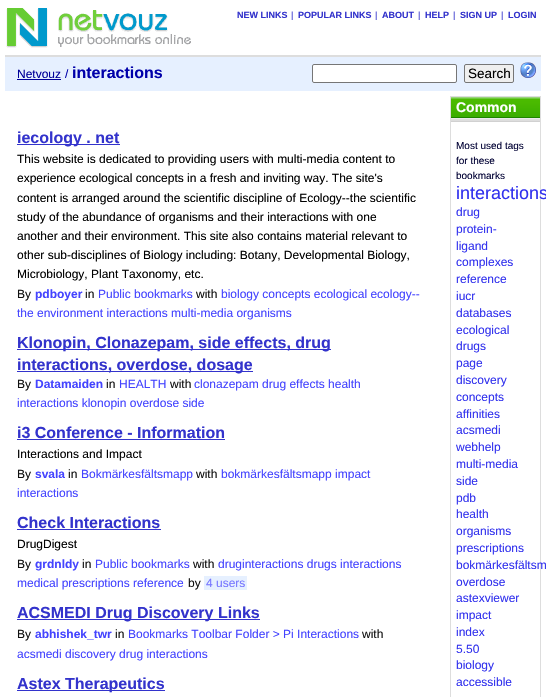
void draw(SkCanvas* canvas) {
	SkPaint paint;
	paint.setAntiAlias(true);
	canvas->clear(0xffffffff);
	paint.setColor(0xffdddddd);
	canvas->drawRect(SkRect::MakeXYWH(5, 55, 536, 2), paint);
	canvas->drawImageRect(SkImages::DeferredFromEncodedData(SkData::MakeFromFileName("img1.png")), SkRect::MakeXYWH(6, 8, 185, 40), SkSamplingOptions());
	SkFont f1(fontMgr->matchFamilyStyle("Liberation Sans", SkFontStyle::Bold()), 9);
	f1.setSubpixel(true);
	paint.setColor(0xff3333cc);
	canvas->drawString("NEW LINKS", 237, 18, f1, paint);
	SkFont f2(fontMgr->matchFamilyStyle("Liberation Sans", SkFontStyle::Normal()), 9);
	f2.setSubpixel(true);
	canvas->drawString("|", 291, 18, f2, paint);
	canvas->drawString("POPULAR LINKS", 298, 18, f1, paint);
	canvas->drawString("|", 375, 18, f2, paint);
	canvas->drawString("ABOUT", 382, 18, f1, paint);
	canvas->drawString("|", 418, 18, f2, paint);
	canvas->drawString("HELP", 425, 18, f1, paint);
	canvas->drawString("|", 453, 18, f2, paint);
	canvas->drawString("SIGN UP", 460, 18, f1, paint);
	canvas->drawString("|", 501, 18, f2, paint);
	canvas->drawString("LOGIN", 508, 18, f1, paint);
	paint.setColor(0xffe6f0ff);
	canvas->drawRect(SkRect::MakeXYWH(5, 57, 536, 34), paint);
	SkFont f3(fontMgr->matchFamilyStyle("Liberation Sans", SkFontStyle::Normal()), 12);
	f3.setSubpixel(true);
	paint.setColor(0xff000099);
	canvas->drawString("Netvouz", 17, 78, f3, paint);
	canvas->drawRect(SkRect::MakeXYWH(17, 79, 44, 1), paint);
	paint.setColor(0xff0000aa);
	canvas->drawString("/", 65, 78, f3, paint);
	SkFont f4(fontMgr->matchFamilyStyle("Liberation Sans", SkFontStyle::Bold()), 16);
	f4.setSubpixel(true);
	canvas->drawString("interactions", 72, 78, f4, paint);
	paint.setColor(0xffffffff);
	canvas->drawRoundRect(SkRect::MakeXYWH(312.5, 64.5, 144, 18), 1.5, 1.5, paint);
	paint.setStroke(true);
	paint.setStrokeWidth(1);
	paint.setColor(0xff767676);
	canvas->drawRoundRect(SkRect::MakeXYWH(312.5, 64.5, 144, 18), 1.5, 1.5, paint);
	paint.setStroke(false);
	paint.setColor(0xffefefef);
	canvas->drawRoundRect(SkRect::MakeXYWH(464.5, 64.5, 49, 18), 1.5, 1.5, paint);
	paint.setStroke(true);
	paint.setColor(0xff767676);
	canvas->drawRoundRect(SkRect::MakeXYWH(464.5, 64.5, 49, 18), 1.5, 1.5, paint);
	SkFont f5(fontMgr->matchFamilyStyle("Liberation Sans", SkFontStyle::Normal()), 13.5);
	f5.setSubpixel(true);
	paint.setStroke(false);
	paint.setColor(0xff000000);
	canvas->drawString("Search", 468, 78, f5, paint);
	canvas->drawImageRect(SkImages::DeferredFromEncodedData(SkData::MakeFromFileName("img2.png")), SkRect::MakeXYWH(520, 62, 16, 16), SkSamplingOptions());
	paint.setColor(0xff3333cc);
	canvas->drawRect(SkRect::MakeXYWH(17, 144, 103, 1), paint);
	canvas->drawString("iecology . net", 17, 143, f4, paint);
	paint.setColor(0xff000000);
	canvas->drawString("This website is dedicated to providing users with multi-media content to", 17, 163, f3, paint);
	canvas->drawString("experience ecological concepts in a fresh and inviting way. The site's", 17, 182, f3, paint);
	canvas->drawString("content is arranged around the scientific discipline of Ecology--the scientific", 17, 202, f3, paint);
	canvas->drawString("study of the abundance of organisms and their interactions with one", 17, 221, f3, paint);
	canvas->drawString("another and their environment. This site also contains material relevant to", 17, 240, f3, paint);
	canvas->drawString("other sub-disciplines of Biology including: Botany, Developmental Biology,", 17, 259, f3, paint);
	canvas->drawString("Microbiology, Plant Taxonomy, etc.", 17, 278, f3, paint);
	paint.setColor(0xff111111);
	canvas->drawString("By", 17, 298, f3, paint);
	SkFont f6(fontMgr->matchFamilyStyle("Liberation Sans", SkFontStyle::Bold()), 12);
	f6.setSubpixel(true);
	paint.setColor(0xff4444ff);
	canvas->drawString("pdboyer", 35, 298, f6, paint);
	paint.setColor(0xff111111);
	canvas->drawString("in", 85, 298, f3, paint);
	paint.setColor(0xff4444ff);
	canvas->drawString("Public bookmarks", 98, 298, f3, paint);
	paint.setColor(0xff111111);
	canvas->drawString("with", 196, 298, f3, paint);
	paint.setColor(0xff4444ff);
	canvas->drawString("biology concepts ecological ecology--", 221, 298, f3, paint);
	canvas->drawString("the environment interactions multi-media organisms", 17, 317, f3, paint);
	paint.setColor(0xff3333cc);
	canvas->drawRect(SkRect::MakeXYWH(17, 349, 314, 1), paint);
	canvas->drawString("Klonopin, Clonazepam, side effects, drug", 17, 348, f4, paint);
	canvas->drawRect(SkRect::MakeXYWH(17, 371, 236, 1), paint);
	canvas->drawString("interactions, overdose, dosage", 17, 370, f4, paint);
	paint.setColor(0xff111111);
	canvas->drawString("By", 17, 388, f3, paint);
	paint.setColor(0xff4444ff);
	canvas->drawString("Datamaiden", 35, 388, f6, paint);
	paint.setColor(0xff111111);
	canvas->drawString("in", 106, 388, f3, paint);
	paint.setColor(0xff4444ff);
	canvas->drawString("HEALTH", 119, 388, f3, paint);
	paint.setColor(0xff111111);
	canvas->drawString("with", 170, 388, f3, paint);
	paint.setColor(0xff4444ff);
	canvas->drawString("clonazepam drug effects health", 194, 388, f3, paint);
	canvas->drawString("interactions klonopin overdose side", 17, 407, f3, paint);
	paint.setColor(0xff3333cc);
	canvas->drawString("i3 Conference - Information", 17, 438, f4, paint);
	canvas->drawRect(SkRect::MakeXYWH(17, 439, 208, 1), paint);
	paint.setColor(0xff000000);
	canvas->drawString("Interactions and Impact", 17, 458, f3, paint);
	paint.setColor(0xff111111);
	canvas->drawString("By", 17, 478, f3, paint);
	paint.setColor(0xff4444ff);
	canvas->drawString("svala", 35, 478, f6, paint);
	paint.setColor(0xff111111);
	canvas->drawString("in", 68, 478, f3, paint);
	paint.setColor(0xff4444ff);
	canvas->drawString("Bokmärkesfältsmapp", 81, 478, f3, paint);
	paint.setColor(0xff111111);
	canvas->drawString("with", 196, 478, f3, paint);
	paint.setColor(0xff4444ff);
	canvas->drawString("bokmärkesfältsmapp impact", 221, 478, f3, paint);
	canvas->drawString("interactions", 17, 497, f3, paint);
	paint.setColor(0xff3333cc);
	canvas->drawString("Check Interactions", 17, 528, f4, paint);
	canvas->drawRect(SkRect::MakeXYWH(17, 529, 144, 1), paint);
	paint.setColor(0xff000000);
	canvas->drawString("DrugDigest", 17, 548, f3, paint);
	paint.setColor(0xff111111);
	canvas->drawString("By", 17, 568, f3, paint);
	paint.setColor(0xff4444ff);
	canvas->drawString("grdnldy", 35, 568, f6, paint);
	paint.setColor(0xff111111);
	canvas->drawString("in", 82, 568, f3, paint);
	paint.setColor(0xff4444ff);
	canvas->drawString("Public bookmarks", 95, 568, f3, paint);
	paint.setColor(0xff111111);
	canvas->drawString("with", 193, 568, f3, paint);
	paint.setColor(0xff4444ff);
	canvas->drawString("druginteractions drugs interactions", 218, 568, f3, paint);
	canvas->drawString("medical prescriptions reference", 17, 587, f3, paint);
	paint.setColor(0xff111111);
	canvas->drawString("by", 188, 587, f3, paint);
	paint.setColor(0xffe6f0ff);
	canvas->drawRect(SkRect::MakeXYWH(204, 576, 43, 14), paint);
	paint.setColor(0xff7777ff);
	canvas->drawString("4 users", 206, 587, f3, paint);
	paint.setColor(0xff3333cc);
	canvas->drawRect(SkRect::MakeXYWH(17, 619, 243, 1), paint);
	canvas->drawString("ACSMEDI Drug Discovery Links", 17, 618, f4, paint);
	paint.setColor(0xff111111);
	canvas->drawString("By", 17, 638, f3, paint);
	paint.setColor(0xff4444ff);
	canvas->drawString("abhishek_twr", 35, 638, f6, paint);
	paint.setColor(0xff111111);
	canvas->drawString("in", 115, 638, f3, paint);
	paint.setColor(0xff4444ff);
	canvas->drawString("Bookmarks Toolbar Folder > Pi Interactions", 128, 638, f3, paint);
	paint.setColor(0xff111111);
	canvas->drawString("with", 362, 638, f3, paint);
	paint.setColor(0xff4444ff);
	canvas->drawString("acsmedi discovery drug interactions", 17, 658, f3, paint);
	paint.setColor(0xff3333cc);
	canvas->drawRect(SkRect::MakeXYWH(17, 690, 148, 1), paint);
	canvas->drawString("Astex Therapeutics", 17, 689, f4, paint);
	paint.setStroke(true);
	paint.setColor(0xffdddddd);
	canvas->drawRect(SkRect::MakeXYWH(450.5, 96.5, 90, 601), paint);
	canvas->drawImageRect(SkImages::DeferredFromEncodedData(SkData::MakeFromFileName("img3.png")), SkRect::MakeXYWH(451, 97, 89, 25), SkSamplingOptions());
	SkFont f7(fontMgr->matchFamilyStyle("Liberation Sans", SkFontStyle::Bold()), 14);
	f7.setSubpixel(true);
	paint.setStroke(false);
	paint.setColor(0xffffffff);
	canvas->drawString("Common", 456, 112, f7, paint);
	SkFont f8(fontMgr->matchFamilyStyle("Liberation Sans", SkFontStyle::Normal()), 10);
	f8.setSubpixel(true);
	paint.setColor(0xff000033);
	canvas->drawString("Most used tags", 456, 149, f8, paint);
	canvas->drawString("for these", 456, 164, f8, paint);
	canvas->drawString("bookmarks", 456, 179, f8, paint);
	SkFont f9(fontMgr->matchFamilyStyle("Liberation Sans", SkFontStyle::Normal()), 18);
	f9.setSubpixel(true);
	paint.setColor(0xff3333ee);
	canvas->drawString("interactions", 456, 199, f9, paint);
	canvas->drawString("drug", 456, 216, f3, paint);
	canvas->drawString("protein-", 456, 233, f3, paint);
	canvas->drawString("ligand", 456, 250, f3, paint);
	canvas->drawString("complexes", 456, 266, f3, paint);
	canvas->drawString("reference", 456, 283, f3, paint);
	canvas->drawString("iucr", 456, 300, f3, paint);
	canvas->drawString("databases", 456, 317, f3, paint);
	canvas->drawString("ecological", 456, 334, f3, paint);
	canvas->drawString("drugs", 456, 350, f3, paint);
	canvas->drawString("page", 456, 367, f3, paint);
	canvas->drawString("discovery", 456, 384, f3, paint);
	canvas->drawString("concepts", 456, 401, f3, paint);
	canvas->drawString("affinities", 456, 418, f3, paint);
	canvas->drawString("acsmedi", 456, 434, f3, paint);
	canvas->drawString("webhelp", 456, 451, f3, paint);
	canvas->drawString("multi-media", 456, 468, f3, paint);
	canvas->drawString("side", 456, 485, f3, paint);
	canvas->drawString("pdb", 456, 502, f3, paint);
	canvas->drawString("health", 456, 518, f3, paint);
	canvas->drawString("organisms", 456, 535, f3, paint);
	canvas->drawString("prescriptions", 456, 552, f3, paint);
	canvas->drawString("bokmärkesfältsm", 456, 569, f3, paint);
	canvas->drawString("overdose", 456, 586, f3, paint);
	canvas->drawString("astexviewer", 456, 602, f3, paint);
	canvas->drawString("impact", 456, 619, f3, paint);
	canvas->drawString("index", 456, 636, f3, paint);
	canvas->drawString("5.50", 456, 653, f3, paint);
	canvas->drawString("biology", 456, 669, f3, paint);
	canvas->drawString("accessible", 456, 686, f3, paint);
}
